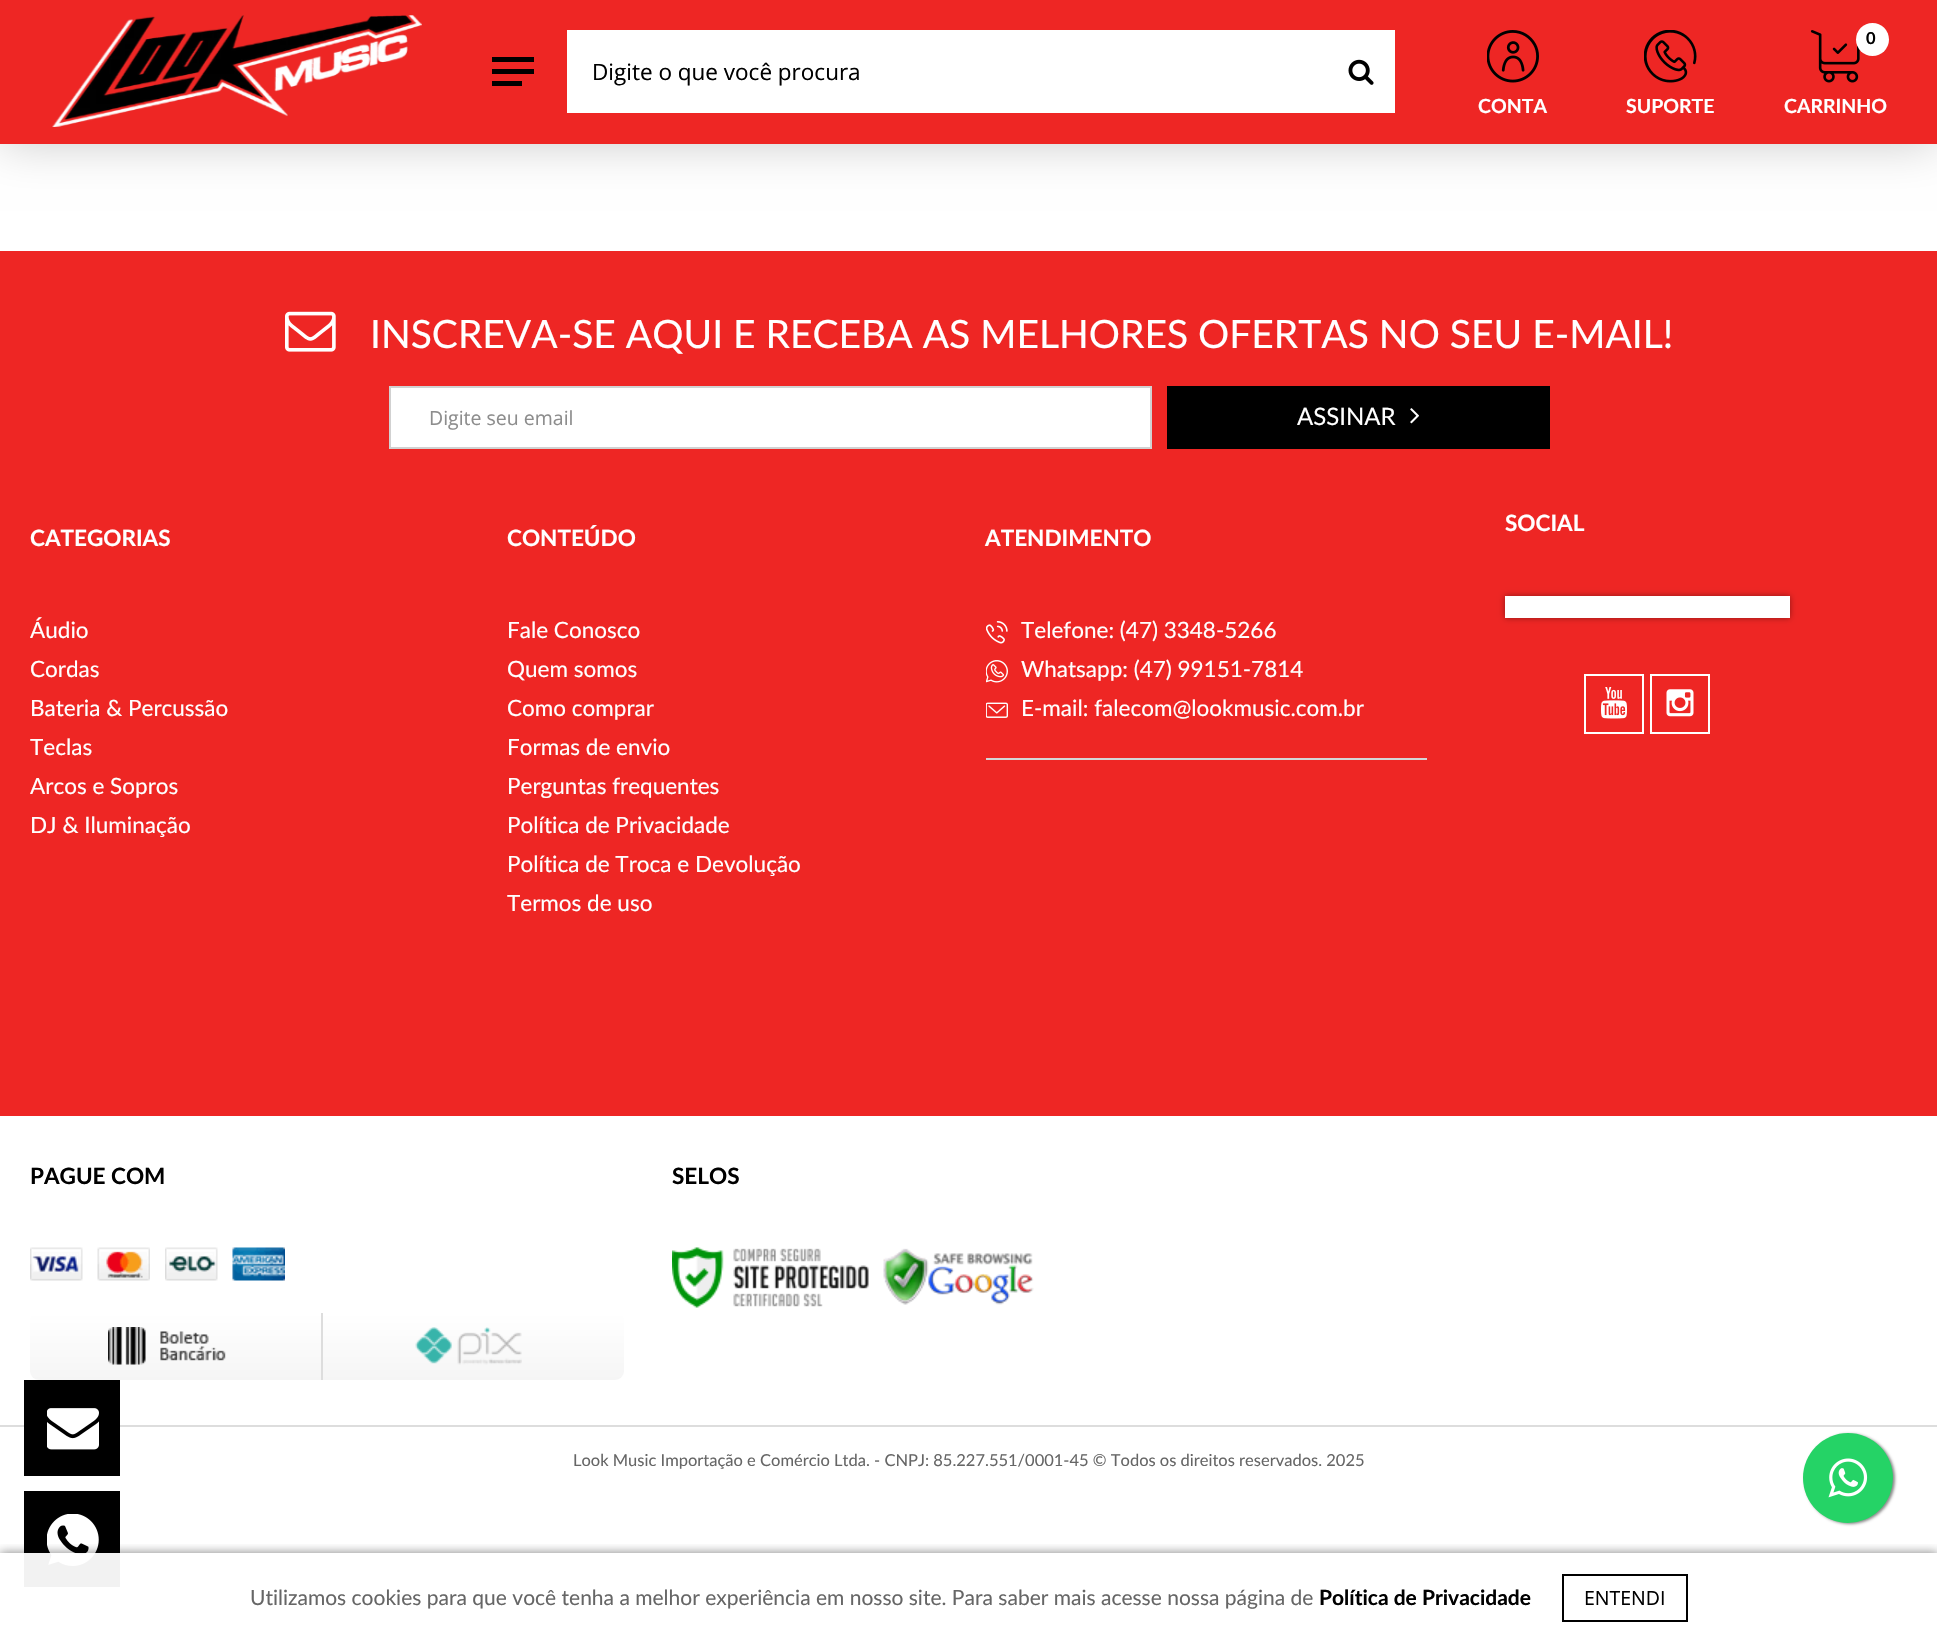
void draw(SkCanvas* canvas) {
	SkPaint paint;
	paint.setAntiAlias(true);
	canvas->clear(0xffffffff);
	paint.setColor(0x33000000);
	paint.setMaskFilter(SkMaskFilter::MakeBlur(kNormal_SkBlurStyle, 22.5));
	canvas->drawRect(SkRect::MakeXYWH(0, 0, 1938, 144), paint);
	paint.setMaskFilter(nullptr);
	paint.setColor(0xffee2624);
	canvas->drawRect(SkRect::MakeXYWH(0, 0, 1937, 144), paint);
	canvas->drawImageRect(SkImages::DeferredFromEncodedData(SkData::MakeFromFileName("img1.png")), SkRect::MakeXYWH(52, 15, 370, 112), SkSamplingOptions());
	paint.setColor(0xff000000);
	canvas->drawRect(SkRect::MakeXYWH(492, 57, 42, 5), paint);
	canvas->drawRect(SkRect::MakeXYWH(492, 69, 42, 5), paint);
	canvas->drawRect(SkRect::MakeXYWH(492, 81, 30, 5), paint);
	paint.setColor(0xffffffff);
	canvas->drawRect(SkRect::MakeXYWH(567, 30, 828, 83), paint);
	SkFont f1(fontMgr->matchFamilyStyle("Open Sans", SkFontStyle::Normal()), 22.5);
	f1.setSubpixel(true);
	paint.setColor(0xff000000);
	canvas->drawString("Digite o que você procura", 592, 80, f1, paint);
	canvas->drawImageRect(SkImages::DeferredFromEncodedData(SkData::MakeFromFileName("img2.png")), SkRect::MakeXYWH(1348, 59, 26, 26), SkSamplingOptions());
	canvas->drawImageRect(SkImages::DeferredFromEncodedData(SkData::MakeFromFileName("img3.png")), SkRect::MakeXYWH(1487, 30, 52, 53), SkSamplingOptions());
	SkFont f2(fontMgr->matchFamilyStyle("Lato", SkFontStyle::Bold()), 19.5);
	f2.setSubpixel(true);
	paint.setColor(0xffffffff);
	canvas->drawString("CONTA", 1478, 113, f2, paint);
	canvas->drawImageRect(SkImages::DeferredFromEncodedData(SkData::MakeFromFileName("img4.png")), SkRect::MakeXYWH(1644, 30, 53, 53), SkSamplingOptions());
	canvas->drawString("SUPORTE", 1626, 113, f2, paint);
	canvas->drawImageRect(SkImages::DeferredFromEncodedData(SkData::MakeFromFileName("img5.png")), SkRect::MakeXYWH(1810, 30, 50, 53), SkSamplingOptions());
	canvas->drawCircle(1872.5, 39.5, 16.5, paint);
	SkFont f3(fontMgr->matchFamilyStyle("Lato", SkFontStyle::Bold()), 16.5);
	f3.setSubpixel(true);
	paint.setColor(0xff000000);
	canvas->drawString("0", 1866, 44, f3, paint);
	paint.setColor(0xffffffff);
	canvas->drawString("CARRINHO", 1784, 113, f2, paint);
	paint.setColor(0xffee2624);
	canvas->drawRect(SkRect::MakeXYWH(0, 251, 1937, 865), paint);
	canvas->drawImageRect(SkImages::DeferredFromEncodedData(SkData::MakeFromFileName("img6.png")), SkRect::MakeXYWH(285, 311, 51, 41), SkSamplingOptions());
	SkFont f4(fontMgr->matchFamilyStyle("Lato", SkFontStyle::Normal()), 39);
	f4.setSubpixel(true);
	paint.setColor(0xffffffff);
	canvas->drawString("INSCREVA-SE AQUI E RECEBA AS MELHORES OFERTAS NO SEU E-MAIL!", 370, 348, f4, paint);
	canvas->drawRect(SkRect::MakeXYWH(390, 387, 761, 61), paint);
	paint.setStroke(true);
	paint.setStrokeWidth(2);
	paint.setColor(0xffd1d1d1);
	canvas->drawRect(SkRect::MakeXYWH(390, 387, 761, 61), paint);
	SkFont f5(fontMgr->matchFamilyStyle("Open Sans", SkFontStyle::Normal()), 19.5);
	f5.setSubpixel(true);
	paint.setStroke(false);
	paint.setColor(0xff8d8d8d);
	canvas->drawString("Digite seu email", 429, 425, f5, paint);
	paint.setColor(0xff000000);
	canvas->drawRect(SkRect::MakeXYWH(1167, 386, 383, 63), paint);
	SkFont f6(fontMgr->matchFamilyStyle("Lato", SkFontStyle::Normal()), 24);
	f6.setSubpixel(true);
	paint.setColor(0xffffffff);
	canvas->drawString("ASSINAR", 1297, 425, f6, paint);
	canvas->drawImageRect(SkImages::DeferredFromEncodedData(SkData::MakeFromFileName("img7.png")), SkRect::MakeXYWH(1410, 408, 9, 16), SkSamplingOptions());
	SkFont f7(fontMgr->matchFamilyStyle("Lato", SkFontStyle::Bold()), 22.5);
	f7.setSubpixel(true);
	canvas->drawString("SOCIAL", 1505, 531, f7, paint);
	paint.setColor(0x66000000);
	paint.setMaskFilter(SkMaskFilter::MakeBlur(kNormal_SkBlurStyle, 3));
	canvas->drawRect(SkRect::MakeXYWH(1505, 596, 285, 22), paint);
	paint.setMaskFilter(nullptr);
	paint.setColor(0xffffffff);
	canvas->drawRect(SkRect::MakeXYWH(1505, 596, 285, 22), paint);
	paint.setStroke(true);
	canvas->drawRect(SkRect::MakeXYWH(1585, 675, 58, 58), paint);
	canvas->drawImageRect(SkImages::DeferredFromEncodedData(SkData::MakeFromFileName("img8.png")), SkRect::MakeXYWH(1601, 687, 26, 32), SkSamplingOptions());
	canvas->drawRect(SkRect::MakeXYWH(1651, 675, 58, 58), paint);
	canvas->drawImageRect(SkImages::DeferredFromEncodedData(SkData::MakeFromFileName("img9.png")), SkRect::MakeXYWH(1666, 689, 28, 28), SkSamplingOptions());
	paint.setStroke(false);
	canvas->drawString("CATEGORIAS", 30, 546, f7, paint);
	SkFont f8(fontMgr->matchFamilyStyle("Lato", SkFontStyle::Normal()), 22.5);
	f8.setSubpixel(true);
	canvas->drawString("Áudio", 30, 638, f8, paint);
	canvas->drawString("Cordas", 30, 677, f8, paint);
	canvas->drawString("Bateria & Percussão", 30, 716, f8, paint);
	canvas->drawString("Teclas", 30, 755, f8, paint);
	canvas->drawString("Arcos e Sopros", 30, 794, f8, paint);
	canvas->drawString("DJ & Iluminação", 30, 833, f8, paint);
	canvas->drawString("CONTEÚDO", 507, 546, f7, paint);
	canvas->drawString("Fale Conosco", 507, 638, f8, paint);
	canvas->drawString("Quem somos", 507, 677, f8, paint);
	canvas->drawString("Como comprar", 507, 716, f8, paint);
	canvas->drawString("Formas de envio", 507, 755, f8, paint);
	canvas->drawString("Perguntas frequentes", 507, 794, f8, paint);
	canvas->drawString("Política de Privacidade", 507, 833, f8, paint);
	canvas->drawString("Política de Troca e Devolução", 507, 872, f8, paint);
	canvas->drawString("Termos de uso", 507, 911, f8, paint);
	canvas->drawString("ATENDIMENTO", 985, 546, f7, paint);
	paint.setColor(0xffd4d5d6);
	canvas->drawRect(SkRect::MakeXYWH(986, 758, 441, 2), paint);
	canvas->drawImageRect(SkImages::DeferredFromEncodedData(SkData::MakeFromFileName("img10.png")), SkRect::MakeXYWH(986, 621, 22, 23), SkSamplingOptions());
	paint.setColor(0xffffffff);
	canvas->drawString("Telefone: (47) 3348-5266", 1021, 638, f8, paint);
	canvas->drawImageRect(SkImages::DeferredFromEncodedData(SkData::MakeFromFileName("img11.png")), SkRect::MakeXYWH(986, 660, 22, 23), SkSamplingOptions());
	canvas->drawString("Whatsapp: (47) 99151-7814", 1021, 677, f8, paint);
	canvas->drawImageRect(SkImages::DeferredFromEncodedData(SkData::MakeFromFileName("img12.png")), SkRect::MakeXYWH(986, 702, 22, 16), SkSamplingOptions());
	canvas->drawString("E-mail: falecom@lookmusic.com.br", 1021, 716, f8, paint);
	paint.setColor(0xff000000);
	canvas->drawString("PAGUE COM", 30, 1184, f7, paint);
	canvas->drawImageRect(SkImages::DeferredFromEncodedData(SkData::MakeFromFileName("img13.png")), SkRect::MakeXYWH(30, 1247, 53, 34), SkSamplingOptions());
	canvas->drawImageRect(SkImages::DeferredFromEncodedData(SkData::MakeFromFileName("img14.png")), SkRect::MakeXYWH(97, 1247, 53, 34), SkSamplingOptions());
	canvas->drawImageRect(SkImages::DeferredFromEncodedData(SkData::MakeFromFileName("img15.png")), SkRect::MakeXYWH(165, 1247, 53, 34), SkSamplingOptions());
	canvas->drawImageRect(SkImages::DeferredFromEncodedData(SkData::MakeFromFileName("img16.png")), SkRect::MakeXYWH(232, 1247, 53, 34), SkSamplingOptions());
	{
		const SkColor colors[] = {0xffffffff, 0xfff5f5f5};
		const float stops[] = {0, 1};
		const SkPoint ends[] = {{327, 1313}, {327, 1380}};
		paint.setShader(SkGradientShader::MakeLinear(ends, colors, stops, 2, SkTileMode::kClamp));
		paint.setAlpha(255);
	}
	canvas->drawRoundRect(SkRect::MakeXYWH(30, 1313, 594, 67), 9, 9, paint);
	canvas->drawImageRect(SkImages::DeferredFromEncodedData(SkData::MakeFromFileName("img17.png")), SkRect::MakeXYWH(108, 1327, 118, 38), SkSamplingOptions());
	paint.setShader(nullptr);
	paint.setColor(0xffdddddd);
	canvas->drawRect(SkRect::MakeXYWH(321, 1313, 2, 67), paint);
	canvas->drawImageRect(SkImages::DeferredFromEncodedData(SkData::MakeFromFileName("img18.png")), SkRect::MakeXYWH(415, 1327, 107, 38), SkSamplingOptions());
	paint.setColor(0xff000000);
	canvas->drawString("SELOS", 672, 1184, f7, paint);
	canvas->drawImageRect(SkImages::DeferredFromEncodedData(SkData::MakeFromFileName("img19.png")), SkRect::MakeXYWH(672, 1247, 197, 61), SkSamplingOptions());
	canvas->drawImageRect(SkImages::DeferredFromEncodedData(SkData::MakeFromFileName("img20.png")), SkRect::MakeXYWH(883, 1248, 151, 57), SkSamplingOptions());
	paint.setColor(0xffdddddd);
	canvas->drawRect(SkRect::MakeXYWH(0, 1425, 1937, 2), paint);
	SkFont f9(fontMgr->matchFamilyStyle("Lato", SkFontStyle::Normal()), 16.5);
	f9.setSubpixel(true);
	paint.setColor(0xff666666);
	canvas->drawString("Look Music Importação e Comércio Ltda. - CNPJ: 85.227.551/0001-45 © Todos os direitos reservados. 2025", 573, 1466, f9, paint);
	paint.setColor(0xff000000);
	canvas->drawRect(SkRect::MakeXYWH(24, 1380, 96, 96), paint);
	canvas->drawImageRect(SkImages::DeferredFromEncodedData(SkData::MakeFromFileName("img21.png")), SkRect::MakeXYWH(47, 1408, 52, 42), SkSamplingOptions());
	canvas->drawRect(SkRect::MakeXYWH(24, 1491, 96, 96), paint);
	canvas->drawImageRect(SkImages::DeferredFromEncodedData(SkData::MakeFromFileName("img22.png")), SkRect::MakeXYWH(47, 1514, 52, 52), SkSamplingOptions());
	paint.setColor(0xff888888);
	paint.setMaskFilter(SkMaskFilter::MakeBlur(kNormal_SkBlurStyle, 1.5));
	canvas->drawRoundRect(SkRect::MakeXYWH(1805, 1434, 90, 90), 45, 45, paint);
	paint.setMaskFilter(nullptr);
	paint.setColor(0xff25d366);
	canvas->drawCircle(1848, 1478, 45, paint);
	canvas->drawImageRect(SkImages::DeferredFromEncodedData(SkData::MakeFromFileName("img23.png")), SkRect::MakeXYWH(1828, 1458, 40, 40), SkSamplingOptions());
	canvas->save();
	canvas->clipRect(SkRect::MakeXYWH(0, 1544, 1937, 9));
	paint.setColor(0x80000000);
	paint.setMaskFilter(SkMaskFilter::MakeBlur(kNormal_SkBlurStyle, 5));
	canvas->drawRect(SkRect::MakeXYWH(0, 1553, 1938, 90), paint);
	paint.setMaskFilter(nullptr);
	canvas->restore();
	paint.setColor(0xf2ffffff);
	canvas->drawRect(SkRect::MakeXYWH(24, 1553, 96, 34), paint);
	SkFont f10(fontMgr->matchFamilyStyle("Lato", SkFontStyle::Normal()), 21);
	f10.setSubpixel(true);
	paint.setColor(0xff666666);
	canvas->drawString("Utilizamos cookies para que você tenha a melhor experiência em nosso site. Para saber mais acesse nossa página de", 250, 1605, f10, paint);
	SkFont f11(fontMgr->matchFamilyStyle("Lato", SkFontStyle::Bold()), 21);
	f11.setSubpixel(true);
	paint.setColor(0xff000000);
	canvas->drawString("Política de Privacidade", 1319, 1605, f11, paint);
	paint.setStroke(true);
	canvas->drawRect(SkRect::MakeXYWH(1563, 1575, 124, 46), paint);
	paint.setStroke(false);
	canvas->drawString("ENTENDI", 1584, 1605, f5, paint);
}
